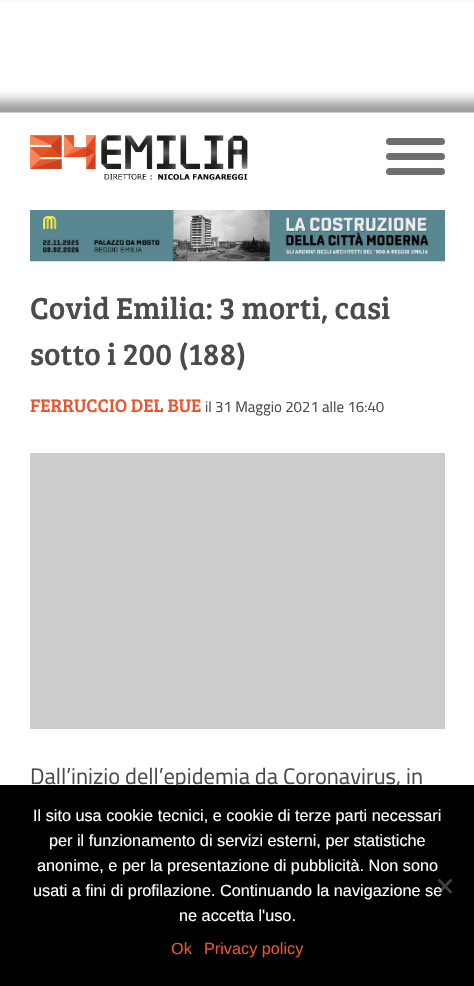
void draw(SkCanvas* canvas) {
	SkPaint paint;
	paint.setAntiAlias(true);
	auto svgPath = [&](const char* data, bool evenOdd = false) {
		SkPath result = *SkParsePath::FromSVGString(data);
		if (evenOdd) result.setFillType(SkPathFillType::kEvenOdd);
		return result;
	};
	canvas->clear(0xffffffff);
	canvas->drawImageRect(SkImages::DeferredFromEncodedData(SkData::MakeFromFileName("img1.png")), SkRect::MakeXYWH(0, 0, 474, 113), SkSamplingOptions());
	canvas->drawImageRect(SkImages::DeferredFromEncodedData(SkData::MakeFromFileName("img2.png")), SkRect::MakeXYWH(30, 135, 218, 45), SkSamplingOptions());
	canvas->drawImageRect(SkImages::DeferredFromEncodedData(SkData::MakeFromFileName("img3.png")), SkRect::MakeXYWH(30, 210, 415, 52), SkSamplingOptions());
	paint.setColor(0xff706e6e);
	canvas->drawRoundRect(SkRect::MakeXYWH(386, 153, 59, 7), 3.5, 3.5, paint);
	canvas->drawRoundRect(SkRect::MakeXYWH(386, 138, 59, 7), 3.5, 3.5, paint);
	canvas->drawRoundRect(SkRect::MakeXYWH(386, 168, 59, 7), 3.5, 3.5, paint);
	SkFont f1(fontMgr->matchFamilyStyle("Bree Serif", SkFontStyle::Normal()), 31.25);
	f1.setSubpixel(true);
	paint.setColor(0xff4c4a4a);
	canvas->drawString("Covid Emilia: 3 morti, casi", 30, 319, f1, paint);
	canvas->drawString("sotto i 200 (188)", 30, 365, f1, paint);
	SkFont f2(fontMgr->matchFamilyStyle("Bree Serif", SkFontStyle::Normal()), 18.75);
	f2.setSubpixel(true);
	paint.setColor(0xffeb552d);
	canvas->drawString("FERRUCCIO DEL BUE", 30, 412, f2, paint);
	SkFont f3(fontMgr->matchFamilyStyle("Titillium Web", SkFontStyle::Normal()), 15);
	f3.setSubpixel(true);
	paint.setColor(0xff4c4a4a);
	canvas->drawString("il 31 Maggio 2021 alle 16:40", 205, 412, f3, paint);
	paint.setColor(0xffcccccc);
	canvas->drawRect(SkRect::MakeXYWH(30, 453, 415, 276), paint);
	SkFont f4(fontMgr->matchFamilyStyle("Titillium Web", SkFontStyle::Normal()), 22.5);
	f4.setSubpixel(true);
	paint.setColor(0xff4c4a4a);
	canvas->drawString("Dall’inizio dell’epidemia da Coronavirus, in", 30, 784, f4, paint);
	paint.setColor(0xff000000);
	canvas->drawRect(SkRect::MakeXYWH(0, 785, 474, 201), paint);
	SkFont f5(fontMgr->matchFamilyStyle("Liberation Sans", SkFontStyle::Normal()), 16.25);
	f5.setSubpixel(true);
	paint.setColor(0xffffffff);
	canvas->drawString("Il sito usa cookie tecnici, e cookie di terze parti necessari", 33, 821, f5, paint);
	canvas->drawString("per il funzionamento di servizi esterni, per statistiche", 49, 846, f5, paint);
	canvas->drawString("anonime, e per la presentazione di pubblicità. Non sono", 37, 871, f5, paint);
	canvas->drawString("usati a fini di profilazione. Continuando la navigazione se", 33, 896, f5, paint);
	canvas->drawString("ne accetta l'uso.", 179, 921, f5, paint);
	paint.setColor(0x80808080);
	canvas->drawPath(svgPath("M450.5 878.5L452.5 880.5L439.5 894L437.5 892Z"), paint);
	paint.setColor(0xff404040);
	canvas->drawPath(svgPath("M437.5 880.5L439.5 878.5L452.5 892L450.5 894Z"), paint);
	paint.setColor(0xffeb552d);
	canvas->drawString("Ok", 171, 954, f5, paint);
	canvas->drawString("Privacy policy", 204, 954, f5, paint);
}
